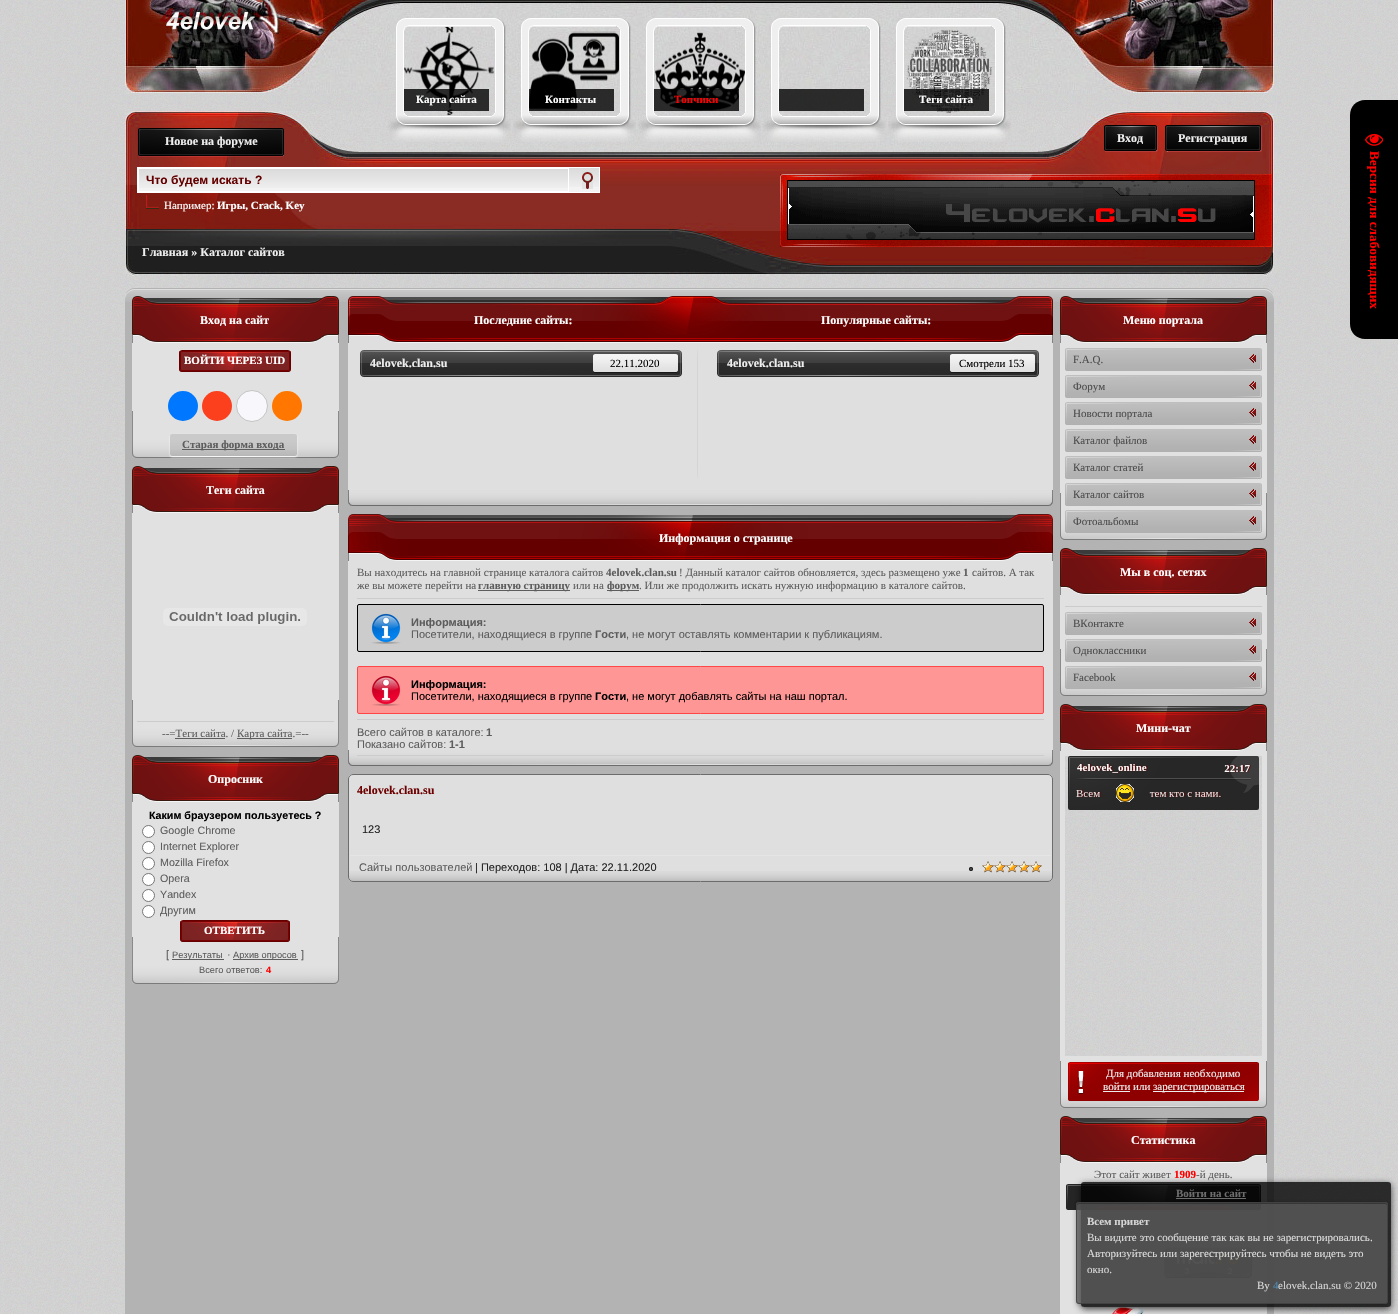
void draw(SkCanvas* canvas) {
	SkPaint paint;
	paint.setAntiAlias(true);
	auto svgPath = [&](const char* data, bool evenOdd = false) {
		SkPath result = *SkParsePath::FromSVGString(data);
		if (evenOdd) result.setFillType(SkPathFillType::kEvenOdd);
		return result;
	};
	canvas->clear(0xffffffff);
	canvas->drawImageRect(SkImages::DeferredFromEncodedData(SkData::MakeFromFileName("img1.png")), SkRect::MakeXYWH(0, 0, 1398, 1314), SkSamplingOptions());
	canvas->drawImageRect(SkImages::DeferredFromEncodedData(SkData::MakeFromFileName("img2.png")), SkRect::MakeXYWH(125, 0, 1149, 93), SkSamplingOptions());
	canvas->drawImageRect(SkImages::DeferredFromEncodedData(SkData::MakeFromFileName("img12.png")), SkRect::MakeXYWH(125, 111, 1149, 165), SkSamplingOptions());
	canvas->drawImageRect(SkImages::DeferredFromEncodedData(SkData::MakeFromFileName("img4.png")), SkRect::MakeXYWH(404, 26, 90, 90), SkSamplingOptions());
	canvas->drawImageRect(SkImages::DeferredFromEncodedData(SkData::MakeFromFileName("img3.png")), SkRect::MakeXYWH(388, 18, 123, 124), SkSamplingOptions());
	paint.setColor(0xcc000000);
	canvas->drawRect(SkRect::MakeXYWH(404, 89, 85, 22), paint);
	SkFont f1(fontMgr->matchFamilyStyle("Liberation Serif", SkFontStyle::Bold()), 11);
	f1.setSubpixel(true);
	paint.setColor(0xffffffff);
	canvas->drawString("Карта сайта", 416, 103, f1, paint);
	canvas->drawImageRect(SkImages::DeferredFromEncodedData(SkData::MakeFromFileName("img6.png")), SkRect::MakeXYWH(529, 31, 90, 80), SkSamplingOptions());
	canvas->drawImageRect(SkImages::DeferredFromEncodedData(SkData::MakeFromFileName("img5.png")), SkRect::MakeXYWH(513, 18, 123, 124), SkSamplingOptions());
	paint.setColor(0xcc000000);
	canvas->drawRect(SkRect::MakeXYWH(529, 89, 85, 22), paint);
	paint.setColor(0xffffffff);
	canvas->drawString("Контакты", 545, 103, f1, paint);
	canvas->drawImageRect(SkImages::DeferredFromEncodedData(SkData::MakeFromFileName("img8.png")), SkRect::MakeXYWH(655, 32, 90, 80), SkSamplingOptions());
	canvas->drawImageRect(SkImages::DeferredFromEncodedData(SkData::MakeFromFileName("img7.png")), SkRect::MakeXYWH(638, 18, 123, 124), SkSamplingOptions());
	paint.setColor(0xcc000000);
	canvas->drawRect(SkRect::MakeXYWH(654, 89, 85, 22), paint);
	paint.setColor(0xffff0000);
	canvas->drawString("Топчики", 674, 103, f1, paint);
	canvas->drawImageRect(SkImages::DeferredFromEncodedData(SkData::MakeFromFileName("img9.png")), SkRect::MakeXYWH(763, 18, 123, 124), SkSamplingOptions());
	paint.setColor(0xcc000000);
	canvas->drawRect(SkRect::MakeXYWH(779, 89, 85, 22), paint);
	canvas->drawImageRect(SkImages::DeferredFromEncodedData(SkData::MakeFromFileName("img11.png")), SkRect::MakeXYWH(907, 30, 85, 84), SkSamplingOptions());
	canvas->drawImageRect(SkImages::DeferredFromEncodedData(SkData::MakeFromFileName("img10.png")), SkRect::MakeXYWH(888, 18, 123, 124), SkSamplingOptions());
	canvas->drawRect(SkRect::MakeXYWH(904, 89, 85, 22), paint);
	paint.setColor(0xffffffff);
	canvas->drawString("Теги сайта", 919, 103, f1, paint);
	canvas->drawImageRect(SkImages::DeferredFromEncodedData(SkData::MakeFromFileName("img13.png")), SkRect::MakeXYWH(138, 128, 147, 29), SkSamplingOptions());
	SkFont f2(fontMgr->matchFamilyStyle("Liberation Serif", SkFontStyle::Bold()), 12);
	f2.setSubpixel(true);
	paint.setColor(0xffeeeeee);
	canvas->drawString("Новое на форуме", 165, 145, f2, paint);
	canvas->drawImageRect(SkImages::DeferredFromEncodedData(SkData::MakeFromFileName("img14.png")), SkRect::MakeXYWH(1104, 125, 54, 27), SkSamplingOptions());
	canvas->drawString("Вход", 1117, 142, f2, paint);
	canvas->drawImageRect(SkImages::DeferredFromEncodedData(SkData::MakeFromFileName("img15.png")), SkRect::MakeXYWH(1165, 125, 97, 27), SkSamplingOptions());
	canvas->drawString("Регистрация", 1178, 142, f2, paint);
	canvas->drawImageRect(SkImages::DeferredFromEncodedData(SkData::MakeFromFileName("img16.png")), SkRect::MakeXYWH(780, 174, 492, 73), SkSamplingOptions());
	canvas->drawImageRect(SkImages::DeferredFromEncodedData(SkData::MakeFromFileName("img17.png")), SkRect::MakeXYWH(787, 180, 468, 60), SkSamplingOptions());
	paint.setColor(0xfff3f3f3);
	canvas->drawRect(SkRect::MakeXYWH(569, 187, 30, 5), paint);
	canvas->drawImageRect(SkImages::DeferredFromEncodedData(SkData::MakeFromFileName("img18.png")), SkRect::MakeXYWH(569, 168, 30, 19), SkSamplingOptions());
	paint.setStroke(true);
	paint.setStrokeWidth(1);
	paint.setColor(0xffffffff);
	canvas->drawRect(SkRect::MakeXYWH(137.5, 167.5, 462, 25), paint);
	paint.setStroke(false);
	paint.setColor(0xfff3f3f3);
	canvas->drawRect(SkRect::MakeXYWH(139, 188, 429, 3), paint);
	canvas->drawImageRect(SkImages::DeferredFromEncodedData(SkData::MakeFromFileName("img19.png")), SkRect::MakeXYWH(139, 169, 429, 19), SkSamplingOptions());
	paint.setStroke(true);
	paint.setColor(0xffffffff);
	canvas->drawRect(SkRect::MakeXYWH(138.5, 168.5, 430, 23), paint);
	SkFont f3(fontMgr->matchFamilyStyle("Liberation Sans", SkFontStyle::Bold()), 12);
	f3.setSubpixel(true);
	paint.setStroke(false);
	paint.setColor(0xff650000);
	canvas->drawString("Что будем искать ?", 146, 184, f3, paint);
	canvas->drawImageRect(SkImages::DeferredFromEncodedData(SkData::MakeFromFileName("img20.png")), SkRect::MakeXYWH(582, 172, 11, 17), SkSamplingOptions());
	canvas->drawImageRect(SkImages::DeferredFromEncodedData(SkData::MakeFromFileName("img21.png")), SkRect::MakeXYWH(146, 195, 13, 14), SkSamplingOptions());
	SkFont f4(fontMgr->matchFamilyStyle("Liberation Serif", SkFontStyle::Normal()), 11);
	f4.setSubpixel(true);
	paint.setColor(0xffffffff);
	canvas->drawString("Например:", 164, 209, f4, paint);
	canvas->drawString("Игры, Crack, Key", 217, 209, f1, paint);
	paint.setColor(0xffeeeeee);
	canvas->drawString("Главная » Каталог сайтов", 142, 256, f2, paint);
	paint.setColor(0xffb3b3b3);
	canvas->drawRect(SkRect::MakeXYWH(125, 302, 1149, 1012), paint);
	canvas->drawImageRect(SkImages::DeferredFromEncodedData(SkData::MakeFromFileName("img22.png")), SkRect::MakeXYWH(125, 288, 1149, 14), SkSamplingOptions());
	canvas->drawImageRect(SkImages::DeferredFromEncodedData(SkData::MakeFromFileName("img23.png")), SkRect::MakeXYWH(132, 296, 207, 5), SkSamplingOptions());
	canvas->drawImageRect(SkImages::DeferredFromEncodedData(SkData::MakeFromFileName("img24.png")), SkRect::MakeXYWH(132, 301, 207, 42), SkSamplingOptions());
	paint.setColor(0xffffffff);
	canvas->drawString("Вход на сайт", 200, 324, f2, paint);
	paint.setColor(0xffe1e1e1);
	canvas->drawRect(SkRect::MakeXYWH(132, 343, 207, 68), paint);
	canvas->drawImageRect(SkImages::DeferredFromEncodedData(SkData::MakeFromFileName("img25.png")), SkRect::MakeXYWH(132, 411, 207, 47), SkSamplingOptions());
	canvas->drawImageRect(SkImages::DeferredFromEncodedData(SkData::MakeFromFileName("img26.png")), SkRect::MakeXYWH(179, 351, 112, 21), SkSamplingOptions());
	paint.setStroke(true);
	paint.setColor(0xff780000);
	canvas->drawRoundRect(SkRect::MakeXYWH(180.5, 351.5, 109, 19), 1.5, 1.5, paint);
	paint.setColor(0xff650000);
	canvas->drawRoundRect(SkRect::MakeXYWH(179.5, 350.5, 111, 21), 2.5, 2.5, paint);
	paint.setStroke(false);
	paint.setColor(0xffffffff);
	canvas->drawString("ВОЙТИ ЧЕРЕЗ UID", 184, 364, f1, paint);
	paint.setColor(0xff0077ff);
	canvas->drawCircle(183, 406, 15, paint);
	paint.setColor(0xfffc3f1d);
	canvas->drawCircle(217, 406, 15, paint);
	paint.setColor(0xfff8f8fc);
	canvas->drawCircle(252, 406, 15.5, paint);
	paint.setStroke(true);
	paint.setColor(0xffc4c4c4);
	canvas->drawCircle(252, 406, 15.5, paint);
	paint.setStroke(false);
	paint.setColor(0xffff7700);
	canvas->drawCircle(287, 406, 15, paint);
	canvas->save();
	canvas->clipPath(svgPath("M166 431H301V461H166ZM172 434H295C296 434 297 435 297 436V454C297 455 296 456 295 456H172C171 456 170 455 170 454V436C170 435 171 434 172 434Z", true), true);
	paint.setColor(0xffffffff);
	paint.setMaskFilter(SkMaskFilter::MakeBlur(kNormal_SkBlurStyle, 1));
	canvas->drawRoundRect(SkRect::MakeXYWH(170, 435, 127, 22), 2, 2, paint);
	paint.setMaskFilter(nullptr);
	canvas->restore();
	paint.setColor(0x1a000000);
	canvas->drawRoundRect(SkRect::MakeXYWH(170, 434, 127, 22), 2, 2, paint);
	paint.setColor(0xff5d5d5d);
	canvas->drawRect(SkRect::MakeXYWH(182, 449, 103, 1), paint);
	canvas->drawString("Старая форма входа", 182, 448, f1, paint);
	canvas->drawImageRect(SkImages::DeferredFromEncodedData(SkData::MakeFromFileName("img27.png")), SkRect::MakeXYWH(132, 466, 207, 5), SkSamplingOptions());
	canvas->drawImageRect(SkImages::DeferredFromEncodedData(SkData::MakeFromFileName("img24.png")), SkRect::MakeXYWH(132, 471, 207, 42), SkSamplingOptions());
	paint.setColor(0xffffffff);
	canvas->drawString("Теги сайта", 206, 494, f2, paint);
	paint.setColor(0xffe1e1e1);
	canvas->drawRect(SkRect::MakeXYWH(132, 513, 207, 187), paint);
	canvas->drawImageRect(SkImages::DeferredFromEncodedData(SkData::MakeFromFileName("img25.png")), SkRect::MakeXYWH(132, 700, 207, 47), SkSamplingOptions());
	canvas->drawImageRect(SkImages::DeferredFromEncodedData(SkData::MakeFromFileName("img28.png")), SkRect::MakeXYWH(163, 608, 144, 18), SkSamplingOptions());
	paint.setColor(0xffcccccc);
	canvas->drawRect(SkRect::MakeXYWH(137, 721, 197, 1), paint);
	paint.setColor(0xff5d5d5d);
	canvas->drawString("--=Теги сайта. /", 162, 737, f4, paint);
	canvas->drawRect(SkRect::MakeXYWH(237, 738, 55, 1), paint);
	canvas->drawString("Карта сайта.=--", 237, 737, f4, paint);
	canvas->drawRect(SkRect::MakeXYWH(175, 738, 50, 1), paint);
	canvas->drawImageRect(SkImages::DeferredFromEncodedData(SkData::MakeFromFileName("img27.png")), SkRect::MakeXYWH(132, 755, 207, 5), SkSamplingOptions());
	canvas->drawImageRect(SkImages::DeferredFromEncodedData(SkData::MakeFromFileName("img24.png")), SkRect::MakeXYWH(132, 760, 207, 42), SkSamplingOptions());
	paint.setColor(0xffffffff);
	canvas->drawString("Опросник", 208, 783, f2, paint);
	paint.setColor(0xffe1e1e1);
	canvas->drawRect(SkRect::MakeXYWH(132, 802, 207, 135), paint);
	canvas->drawImageRect(SkImages::DeferredFromEncodedData(SkData::MakeFromFileName("img25.png")), SkRect::MakeXYWH(132, 937, 207, 47), SkSamplingOptions());
	SkFont f5(fontMgr->matchFamilyStyle("Liberation Sans", SkFontStyle::Bold()), 10.7);
	f5.setSubpixel(true);
	paint.setColor(0xff000000);
	canvas->drawString("Каким браузером пользуетесь ?", 149, 819, f5, paint);
	paint.setColor(0xffffffff);
	canvas->drawCircle(148.5, 831.5, 6, paint);
	paint.setStroke(true);
	paint.setColor(0xff767676);
	canvas->drawCircle(148.5, 831.5, 6, paint);
	SkFont f6(fontMgr->matchFamilyStyle("Liberation Sans", SkFontStyle::Normal()), 10.7);
	f6.setSubpixel(true);
	paint.setStroke(false);
	paint.setColor(0xff5d5d5d);
	canvas->drawString("Google Chrome", 160, 834, f6, paint);
	paint.setColor(0xffffffff);
	canvas->drawCircle(148.5, 847.5, 6, paint);
	paint.setStroke(true);
	paint.setColor(0xff767676);
	canvas->drawCircle(148.5, 847.5, 6, paint);
	paint.setStroke(false);
	paint.setColor(0xff5d5d5d);
	canvas->drawString("Internet Explorer", 160, 850, f6, paint);
	paint.setColor(0xffffffff);
	canvas->drawCircle(148.5, 863.5, 6, paint);
	paint.setStroke(true);
	paint.setColor(0xff767676);
	canvas->drawCircle(148.5, 863.5, 6, paint);
	paint.setStroke(false);
	paint.setColor(0xff5d5d5d);
	canvas->drawString("Mozilla Firefox", 160, 866, f6, paint);
	paint.setColor(0xffffffff);
	canvas->drawCircle(148.5, 879.5, 6, paint);
	paint.setStroke(true);
	paint.setColor(0xff767676);
	canvas->drawCircle(148.5, 879.5, 6, paint);
	paint.setStroke(false);
	paint.setColor(0xff5d5d5d);
	canvas->drawString("Opera", 160, 882, f6, paint);
	paint.setColor(0xffffffff);
	canvas->drawCircle(148.5, 895.5, 6, paint);
	paint.setStroke(true);
	paint.setColor(0xff767676);
	canvas->drawCircle(148.5, 895.5, 6, paint);
	paint.setStroke(false);
	paint.setColor(0xff5d5d5d);
	canvas->drawString("Yandex", 160, 898, f6, paint);
	paint.setColor(0xffffffff);
	canvas->drawCircle(148.5, 911.5, 6, paint);
	paint.setStroke(true);
	paint.setColor(0xff767676);
	canvas->drawCircle(148.5, 911.5, 6, paint);
	paint.setStroke(false);
	paint.setColor(0xff5d5d5d);
	canvas->drawString("Другим", 160, 914, f6, paint);
	canvas->drawImageRect(SkImages::DeferredFromEncodedData(SkData::MakeFromFileName("img29.png")), SkRect::MakeXYWH(180, 921, 110, 21), SkSamplingOptions());
	paint.setStroke(true);
	paint.setColor(0xff780000);
	canvas->drawRoundRect(SkRect::MakeXYWH(181.5, 921.5, 107, 19), 1.5, 1.5, paint);
	paint.setColor(0xff650000);
	canvas->drawRoundRect(SkRect::MakeXYWH(180.5, 920.5, 109, 21), 2.5, 2.5, paint);
	paint.setStroke(false);
	paint.setColor(0xffffffff);
	canvas->drawString("ОТВЕТИТЬ", 204, 934, f1, paint);
	SkFont f7(fontMgr->matchFamilyStyle("Liberation Sans", SkFontStyle::Normal()), 11);
	f7.setSubpixel(true);
	paint.setColor(0xff5d5d5d);
	canvas->drawString("[", 166, 958, f7, paint);
	canvas->drawRect(SkRect::MakeXYWH(172, 959, 52, 1), paint);
	SkFont f8(fontMgr->matchFamilyStyle("Liberation Sans", SkFontStyle::Normal()), 9.25);
	f8.setSubpixel(true);
	canvas->drawString("Результаты", 172, 958, f8, paint);
	canvas->drawString("·", 227, 958, f7, paint);
	canvas->drawRect(SkRect::MakeXYWH(233, 959, 65, 1), paint);
	canvas->drawString("Архив опросов", 233, 958, f8, paint);
	canvas->drawString("]", 301, 958, f7, paint);
	canvas->drawString("Всего ответов:", 199, 973, f8, paint);
	SkFont f9(fontMgr->matchFamilyStyle("Liberation Sans", SkFontStyle::Bold()), 9.25);
	f9.setSubpixel(true);
	paint.setColor(0xffff0000);
	canvas->drawString("4", 266, 973, f9, paint);
	canvas->drawImageRect(SkImages::DeferredFromEncodedData(SkData::MakeFromFileName("img30.png")), SkRect::MakeXYWH(348, 296, 705, 5), SkSamplingOptions());
	canvas->drawImageRect(SkImages::DeferredFromEncodedData(SkData::MakeFromFileName("img31.png")), SkRect::MakeXYWH(348, 301, 705, 42), SkSamplingOptions());
	paint.setColor(0xffffffff);
	canvas->drawString("Последние сайты:", 474, 324, f2, paint);
	canvas->drawString("Популярные сайты:", 821, 324, f2, paint);
	paint.setColor(0xffdfdfdf);
	canvas->drawRect(SkRect::MakeXYWH(348, 343, 705, 147), paint);
	canvas->drawImageRect(SkImages::DeferredFromEncodedData(SkData::MakeFromFileName("img32.png")), SkRect::MakeXYWH(348, 490, 705, 16), SkSamplingOptions());
	canvas->drawImageRect(SkImages::DeferredFromEncodedData(SkData::MakeFromFileName("img33.png")), SkRect::MakeXYWH(360, 350, 322, 27), SkSamplingOptions());
	paint.setColor(0xffeeeeee);
	canvas->drawString("4elovek.clan.su", 370, 367, f2, paint);
	paint.setColor(0xff000000);
	canvas->drawString("22.11.2020", 610, 367, f4, paint);
	canvas->drawImageRect(SkImages::DeferredFromEncodedData(SkData::MakeFromFileName("img34.png")), SkRect::MakeXYWH(697, 350, 1, 128), SkSamplingOptions());
	canvas->drawImageRect(SkImages::DeferredFromEncodedData(SkData::MakeFromFileName("img33.png")), SkRect::MakeXYWH(717, 350, 322, 27), SkSamplingOptions());
	paint.setColor(0xffeeeeee);
	canvas->drawString("4elovek.clan.su", 727, 367, f2, paint);
	paint.setColor(0xff000000);
	canvas->drawString("Смотрели 153", 959, 367, f4, paint);
	canvas->drawImageRect(SkImages::DeferredFromEncodedData(SkData::MakeFromFileName("img35.png")), SkRect::MakeXYWH(348, 514, 705, 5), SkSamplingOptions());
	canvas->drawImageRect(SkImages::DeferredFromEncodedData(SkData::MakeFromFileName("img36.png")), SkRect::MakeXYWH(348, 519, 705, 42), SkSamplingOptions());
	paint.setColor(0xffffffff);
	canvas->drawString("Информация о странице", 659, 542, f2, paint);
	paint.setColor(0xffdfdfdf);
	canvas->drawRect(SkRect::MakeXYWH(348, 561, 705, 189), paint);
	canvas->drawImageRect(SkImages::DeferredFromEncodedData(SkData::MakeFromFileName("img32.png")), SkRect::MakeXYWH(348, 750, 705, 16), SkSamplingOptions());
	paint.setColor(0xff5d5d5d);
	canvas->drawString("Вы находитесь на главной странице каталога сайтов", 357, 576, f4, paint);
	canvas->drawString("4elovek.clan.su", 606, 576, f1, paint);
	canvas->drawString("! Данный каталог сайтов обновляется, здесь размещено уже", 679, 576, f4, paint);
	canvas->drawString("1", 963, 576, f1, paint);
	canvas->drawString("сайтов. А так", 972, 576, f4, paint);
	canvas->drawString("же вы можете перейти на", 357, 589, f4, paint);
	canvas->drawRect(SkRect::MakeXYWH(478, 590, 92, 1), paint);
	canvas->drawString("главную страницу", 478, 589, f1, paint);
	canvas->drawString("или на", 573, 589, f4, paint);
	canvas->drawRect(SkRect::MakeXYWH(607, 590, 32, 1), paint);
	canvas->drawString("форум", 607, 589, f1, paint);
	canvas->drawString(". Или же продолжить искать нужную информацию в каталоге сайтов.", 639, 589, f4, paint);
	paint.setColor(0xffcccccc);
	canvas->drawRect(SkRect::MakeXYWH(357, 598, 687, 1), paint);
	canvas->drawRoundRect(SkRect::MakeXYWH(357.5, 604.5, 686, 47), 1.5, 1.5, paint);
	paint.setStroke(true);
	paint.setColor(0xff000000);
	canvas->drawRoundRect(SkRect::MakeXYWH(357.5, 604.5, 686, 47), 1.5, 1.5, paint);
	canvas->drawImageRect(SkImages::DeferredFromEncodedData(SkData::MakeFromFileName("img37.png")), SkRect::MakeXYWH(371, 613, 30, 31), SkSamplingOptions());
	SkFont f10(fontMgr->matchFamilyStyle("Liberation Sans", SkFontStyle::Bold()), 11);
	f10.setSubpixel(true);
	paint.setStroke(false);
	paint.setColor(0xff5d5d5d);
	canvas->drawString("Информация:", 411, 626, f10, paint);
	canvas->drawString("Посетители, находящиеся в группе", 411, 638, f7, paint);
	canvas->drawString("Гости", 595, 638, f10, paint);
	canvas->drawString(", не могут оставлять комментарии к публикациям.", 626, 638, f7, paint);
	paint.setColor(0xffff9696);
	canvas->drawRoundRect(SkRect::MakeXYWH(357.5, 666.5, 686, 47), 1.5, 1.5, paint);
	paint.setStroke(true);
	paint.setColor(0xffff4545);
	canvas->drawRoundRect(SkRect::MakeXYWH(357.5, 666.5, 686, 47), 1.5, 1.5, paint);
	canvas->drawImageRect(SkImages::DeferredFromEncodedData(SkData::MakeFromFileName("img38.png")), SkRect::MakeXYWH(371, 675, 30, 31), SkSamplingOptions());
	paint.setStroke(false);
	paint.setColor(0xff000000);
	canvas->drawString("Информация:", 411, 688, f10, paint);
	canvas->drawString("Посетители, находящиеся в группе", 411, 700, f7, paint);
	canvas->drawString("Гости", 595, 700, f10, paint);
	canvas->drawString(", не могут добавлять сайты на наш портал.", 626, 700, f7, paint);
	paint.setColor(0xffcccccc);
	canvas->drawRect(SkRect::MakeXYWH(357, 719, 687, 1), paint);
	paint.setColor(0xff5d5d5d);
	canvas->drawString("Всего сайтов в каталоге:", 357, 736, f7, paint);
	canvas->drawString("1", 486, 736, f10, paint);
	canvas->drawString("Показано сайтов:", 357, 748, f7, paint);
	canvas->drawString("1-1", 449, 748, f10, paint);
	paint.setColor(0xffcccccc);
	canvas->drawRect(SkRect::MakeXYWH(357, 755, 687, 1), paint);
	paint.setColor(0xffdfdfdf);
	canvas->drawRoundRect(SkRect::MakeXYWH(348, 774, 705, 108), 5, 5, paint);
	canvas->drawImageRect(SkImages::DeferredFromEncodedData(SkData::MakeFromFileName("img39.png")), SkRect::MakeXYWH(348, 871, 705, 10), SkSamplingOptions());
	paint.setStroke(true);
	paint.setColor(0xff6c6c6c);
	canvas->drawRoundRect(SkRect::MakeXYWH(348.5, 774.5, 704, 107), 4.5, 4.5, paint);
	paint.setStroke(false);
	paint.setColor(0xff6d0000);
	canvas->drawString("4elovek.clan.su", 357, 794, f2, paint);
	paint.setColor(0xff232323);
	canvas->drawString("123", 362, 833, f7, paint);
	paint.setColor(0xffe5e5e5);
	canvas->drawRect(SkRect::MakeXYWH(350, 855, 701, 1), paint);
	paint.setColor(0xff5d5d5d);
	canvas->drawString("Сайты пользователей", 359, 871, f7, paint);
	paint.setColor(0xff232323);
	canvas->drawString("| Переходов: 108 | Дата: 22.11.2020", 475, 871, f7, paint);
	canvas->drawImageRect(SkImages::DeferredFromEncodedData(SkData::MakeFromFileName("img40.png")), SkRect::MakeXYWH(982, 861, 60, 12), SkSamplingOptions());
	paint.setStroke(true);
	canvas->drawCircle(971, 869, 1.5, paint);
	canvas->drawImageRect(SkImages::DeferredFromEncodedData(SkData::MakeFromFileName("img41.png")), SkRect::MakeXYWH(982, 861, 60, 12), SkSamplingOptions());
	canvas->drawCircle(971, 869, 1.5, paint);
	canvas->drawCircle(971, 869, 1.5, paint);
	canvas->drawCircle(971, 869, 1.5, paint);
	canvas->drawCircle(971, 869, 1.5, paint);
	canvas->drawImageRect(SkImages::DeferredFromEncodedData(SkData::MakeFromFileName("img23.png")), SkRect::MakeXYWH(1060, 296, 207, 5), SkSamplingOptions());
	canvas->drawImageRect(SkImages::DeferredFromEncodedData(SkData::MakeFromFileName("img24.png")), SkRect::MakeXYWH(1060, 301, 207, 42), SkSamplingOptions());
	paint.setStroke(false);
	paint.setColor(0xffffffff);
	canvas->drawString("Меню портала", 1123, 324, f2, paint);
	paint.setColor(0xffe1e1e1);
	canvas->drawRect(SkRect::MakeXYWH(1060, 343, 207, 150), paint);
	canvas->drawImageRect(SkImages::DeferredFromEncodedData(SkData::MakeFromFileName("img25.png")), SkRect::MakeXYWH(1060, 493, 207, 47), SkSamplingOptions());
	canvas->drawImageRect(SkImages::DeferredFromEncodedData(SkData::MakeFromFileName("img42.png")), SkRect::MakeXYWH(1065, 348, 197, 23), SkSamplingOptions());
	paint.setColor(0xff4c4c4c);
	canvas->drawString("F.A.Q.", 1073, 363, f4, paint);
	canvas->drawImageRect(SkImages::DeferredFromEncodedData(SkData::MakeFromFileName("img42.png")), SkRect::MakeXYWH(1065, 375, 197, 23), SkSamplingOptions());
	canvas->drawString("Форум", 1073, 390, f4, paint);
	canvas->drawImageRect(SkImages::DeferredFromEncodedData(SkData::MakeFromFileName("img42.png")), SkRect::MakeXYWH(1065, 402, 197, 23), SkSamplingOptions());
	canvas->drawString("Новости портала", 1073, 417, f4, paint);
	canvas->drawImageRect(SkImages::DeferredFromEncodedData(SkData::MakeFromFileName("img42.png")), SkRect::MakeXYWH(1065, 429, 197, 23), SkSamplingOptions());
	canvas->drawString("Каталог файлов", 1073, 444, f4, paint);
	canvas->drawImageRect(SkImages::DeferredFromEncodedData(SkData::MakeFromFileName("img42.png")), SkRect::MakeXYWH(1065, 456, 197, 23), SkSamplingOptions());
	canvas->drawString("Каталог статей", 1073, 471, f4, paint);
	canvas->drawImageRect(SkImages::DeferredFromEncodedData(SkData::MakeFromFileName("img42.png")), SkRect::MakeXYWH(1065, 483, 197, 23), SkSamplingOptions());
	canvas->drawString("Каталог сайтов", 1073, 498, f4, paint);
	canvas->drawImageRect(SkImages::DeferredFromEncodedData(SkData::MakeFromFileName("img42.png")), SkRect::MakeXYWH(1065, 510, 197, 23), SkSamplingOptions());
	canvas->drawString("Фотоальбомы", 1073, 525, f4, paint);
	canvas->drawImageRect(SkImages::DeferredFromEncodedData(SkData::MakeFromFileName("img27.png")), SkRect::MakeXYWH(1060, 548, 207, 5), SkSamplingOptions());
	canvas->drawImageRect(SkImages::DeferredFromEncodedData(SkData::MakeFromFileName("img24.png")), SkRect::MakeXYWH(1060, 553, 207, 42), SkSamplingOptions());
	paint.setColor(0xffffffff);
	canvas->drawString("Мы в соц. сетях", 1120, 576, f2, paint);
	paint.setColor(0xffe1e1e1);
	canvas->drawRect(SkRect::MakeXYWH(1060, 595, 207, 54), paint);
	canvas->drawImageRect(SkImages::DeferredFromEncodedData(SkData::MakeFromFileName("img25.png")), SkRect::MakeXYWH(1060, 649, 207, 47), SkSamplingOptions());
	paint.setColor(0xffcccccc);
	canvas->drawRect(SkRect::MakeXYWH(1065, 606, 197, 1), paint);
	canvas->drawImageRect(SkImages::DeferredFromEncodedData(SkData::MakeFromFileName("img42.png")), SkRect::MakeXYWH(1065, 612, 197, 23), SkSamplingOptions());
	paint.setColor(0xff4c4c4c);
	canvas->drawString("ВКонтакте", 1073, 627, f4, paint);
	canvas->drawImageRect(SkImages::DeferredFromEncodedData(SkData::MakeFromFileName("img42.png")), SkRect::MakeXYWH(1065, 639, 197, 23), SkSamplingOptions());
	canvas->drawString("Одноклассники", 1073, 654, f4, paint);
	canvas->drawImageRect(SkImages::DeferredFromEncodedData(SkData::MakeFromFileName("img42.png")), SkRect::MakeXYWH(1065, 666, 197, 23), SkSamplingOptions());
	canvas->drawString("Facebook", 1073, 681, f4, paint);
	canvas->drawImageRect(SkImages::DeferredFromEncodedData(SkData::MakeFromFileName("img27.png")), SkRect::MakeXYWH(1060, 704, 207, 5), SkSamplingOptions());
	canvas->drawImageRect(SkImages::DeferredFromEncodedData(SkData::MakeFromFileName("img24.png")), SkRect::MakeXYWH(1060, 709, 207, 42), SkSamplingOptions());
	paint.setColor(0xffffffff);
	canvas->drawString("Мини-чат", 1136, 732, f2, paint);
	paint.setColor(0xffe1e1e1);
	canvas->drawRect(SkRect::MakeXYWH(1060, 751, 207, 310), paint);
	canvas->drawImageRect(SkImages::DeferredFromEncodedData(SkData::MakeFromFileName("img25.png")), SkRect::MakeXYWH(1060, 1061, 207, 47), SkSamplingOptions());
	canvas->drawImageRect(SkImages::DeferredFromEncodedData(SkData::MakeFromFileName("img43.png")), SkRect::MakeXYWH(1065, 756, 197, 300), SkSamplingOptions());
	canvas->drawImageRect(SkImages::DeferredFromEncodedData(SkData::MakeFromFileName("img44.png")), SkRect::MakeXYWH(1068, 1062, 191, 39), SkSamplingOptions());
	paint.setColor(0xffeeeeee);
	canvas->drawString("Для добавления необходимо", 1106, 1077, f4, paint);
	canvas->drawString("войти или", 1103, 1090, f4, paint);
	paint.setColor(0xffededed);
	canvas->drawRect(SkRect::MakeXYWH(1103, 1091, 27, 1), paint);
	canvas->drawRect(SkRect::MakeXYWH(1153, 1091, 91, 1), paint);
	paint.setColor(0xffeeeeee);
	canvas->drawString("зарегистрироваться", 1153, 1090, f4, paint);
	canvas->drawImageRect(SkImages::DeferredFromEncodedData(SkData::MakeFromFileName("img27.png")), SkRect::MakeXYWH(1060, 1116, 207, 5), SkSamplingOptions());
	canvas->drawImageRect(SkImages::DeferredFromEncodedData(SkData::MakeFromFileName("img24.png")), SkRect::MakeXYWH(1060, 1121, 207, 42), SkSamplingOptions());
	paint.setColor(0xffffffff);
	canvas->drawString("Статистика", 1131, 1144, f2, paint);
	paint.setColor(0xffe1e1e1);
	canvas->drawRect(SkRect::MakeXYWH(1060, 1163, 207, 151), paint);
	paint.setColor(0xff5d5d5d);
	canvas->drawString("Этот сайт живет", 1094, 1178, f4, paint);
	paint.setColor(0xffff0000);
	canvas->drawString("1909", 1174, 1178, f1, paint);
	paint.setColor(0xff5d5d5d);
	canvas->drawString("-й день.", 1196, 1178, f4, paint);
	canvas->drawImageRect(SkImages::DeferredFromEncodedData(SkData::MakeFromFileName("img45.png")), SkRect::MakeXYWH(1066, 1184, 195, 26), SkSamplingOptions());
	canvas->drawImageRect(SkImages::DeferredFromEncodedData(SkData::MakeFromFileName("img46.png")), SkRect::MakeXYWH(1164, 1247, 88, 31), SkSamplingOptions());
	canvas->drawImageRect(SkImages::DeferredFromEncodedData(SkData::MakeFromFileName("img47.png")), SkRect::MakeXYWH(1112, 1307, 32, 7), SkSamplingOptions());
	paint.setColor(0xff000000);
	canvas->drawPath(svgPath("M1365 100H1398V339H1365C1356.5 339 1350 332.5 1350 324V115C1350 106.5 1356.5 100 1365 100Z"), paint);
	canvas->drawImageRect(SkImages::DeferredFromEncodedData(SkData::MakeFromFileName("img48.png")), SkRect::MakeXYWH(1365, 133, 18, 13), SkSamplingOptions());
	SkFont f11(fontMgr->matchFamilyStyle("Liberation Serif", SkFontStyle::Bold()), 13.25);
	f11.setSubpixel(true);
	paint.setColor(0xffff0000);
	canvas->save();
	canvas->rotate(90, 1370, 151);
	canvas->drawString("Версия для слабовидящих", 1370, 151, f11, paint);
	canvas->restore();
	canvas->save();
	canvas->clipPath(svgPath("M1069 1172H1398V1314H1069ZM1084 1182H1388C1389.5 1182 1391 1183.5 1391 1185V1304C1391 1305.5 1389.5 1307 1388 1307H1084C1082.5 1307 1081 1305.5 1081 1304V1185C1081 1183.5 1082.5 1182 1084 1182Z", true), true);
	paint.setColor(0xb3000000);
	paint.setMaskFilter(SkMaskFilter::MakeBlur(kNormal_SkBlurStyle, 3.5));
	canvas->drawRoundRect(SkRect::MakeXYWH(1081, 1184, 310, 125), 3, 3, paint);
	paint.setMaskFilter(nullptr);
	canvas->restore();
	paint.setColor(0xcc000000);
	canvas->drawRoundRect(SkRect::MakeXYWH(1081, 1182, 310, 125), 3, 3, paint);
	paint.setColor(0xff6d6d6d);
	canvas->drawString("Войти на сайт", 1176, 1197, f1, paint);
	paint.setColor(0x66ffffff);
	canvas->drawRect(SkRect::MakeXYWH(1176, 1198, 70, 1), paint);
	canvas->save();
	canvas->clipPath(svgPath("M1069 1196H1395V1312H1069ZM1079 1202H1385C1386.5 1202 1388 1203.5 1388 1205V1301C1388 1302.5 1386.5 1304 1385 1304H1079C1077.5 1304 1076 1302.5 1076 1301V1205C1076 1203.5 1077.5 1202 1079 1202Z", true), true);
	paint.setColor(0x3d000000);
	paint.setMaskFilter(SkMaskFilter::MakeBlur(kNormal_SkBlurStyle, 2));
	canvas->drawRoundRect(SkRect::MakeXYWH(1076, 1203, 312, 102), 3, 3, paint);
	paint.setMaskFilter(nullptr);
	canvas->restore();
	paint.setColor(0xcc595959);
	canvas->drawRoundRect(SkRect::MakeXYWH(1076, 1202, 312, 102), 3, 3, paint);
	paint.setColor(0xcc313131);
	canvas->drawPath(svgPath("M1079 1204H1385C1386 1204 1387 1205 1387 1206C1387 1205 1387 1203 1385 1203H1078L1077 1204V1206C1077 1205 1078 1204 1079 1204Z"), paint);
	paint.setStroke(true);
	paint.setColor(0xcc3f3f3f);
	canvas->drawRoundRect(SkRect::MakeXYWH(1076.5, 1202.5, 311, 101), 2.5, 2.5, paint);
	paint.setStroke(false);
	paint.setColor(0xffd5d5d5);
	canvas->drawString("Всем привет", 1087, 1225, f1, paint);
	paint.setColor(0xffdcdcdc);
	canvas->drawString("Вы видите это сообщение так как вы не зарегистрировались.", 1087, 1241, f4, paint);
	canvas->drawString("Авторизуйтесь или зарегестрируйтесь чтобы не видеть это", 1087, 1257, f4, paint);
	paint.setColor(0xffd5d5d5);
	canvas->drawString("окно.", 1087, 1273, f4, paint);
	paint.setColor(0xffdcdcdc);
	canvas->drawString("By", 1257, 1289, f4, paint);
	paint.setColor(0xff4e88b0);
	canvas->drawString("4", 1273, 1289, f4, paint);
	paint.setColor(0xffd5d5d5);
	canvas->drawString("elovek.clan.su © 2020", 1278, 1289, f4, paint);
}
